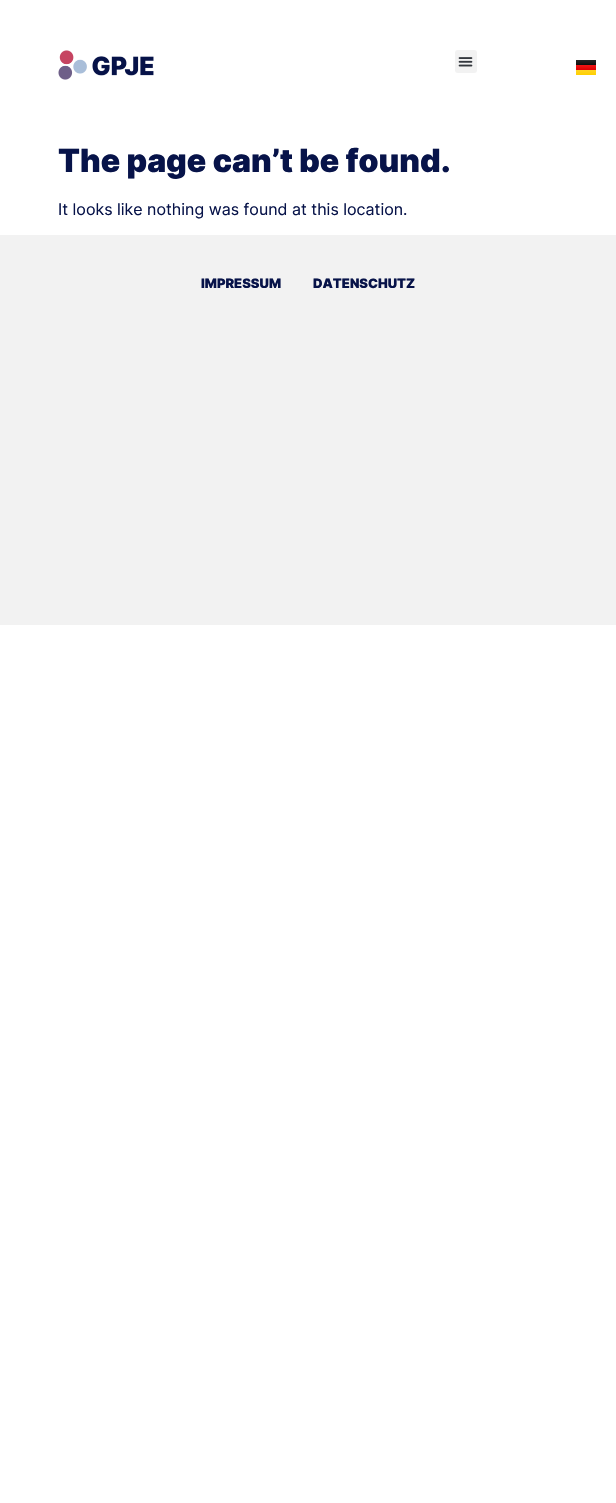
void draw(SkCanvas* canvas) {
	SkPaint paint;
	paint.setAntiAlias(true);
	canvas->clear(0xffffffff);
	canvas->drawImageRect(SkImages::DeferredFromEncodedData(SkData::MakeFromFileName("img1.png")), SkRect::MakeXYWH(58, 50, 96, 30), SkSamplingOptions());
	paint.setColor(0xfff2f2f2);
	canvas->drawRoundRect(SkRect::MakeXYWH(455, 50, 22, 23), 3, 3, paint);
	canvas->drawImageRect(SkImages::DeferredFromEncodedData(SkData::MakeFromFileName("img2.png")), SkRect::MakeXYWH(458, 57, 15, 10), SkSamplingOptions());
	{
		const SkColor colors[] = {0xff262626, 0xff0d0d0d};
		const float stops[] = {0, 1};
		const SkPoint ends[] = {{586, 60}, {586, 65}};
		paint.setShader(SkGradientShader::MakeLinear(ends, colors, stops, 2, SkTileMode::kClamp));
		paint.setAlpha(255);
	}
	canvas->drawRect(SkRect::MakeXYWH(576, 60, 20, 5), paint);
	{
		const SkColor colors[] = {0xfff01515, 0xffde0000};
		const float stops[] = {0, 1};
		const SkPoint ends[] = {{586, 65}, {586, 70}};
		paint.setShader(SkGradientShader::MakeLinear(ends, colors, stops, 2, SkTileMode::kClamp));
		paint.setAlpha(255);
	}
	canvas->drawRect(SkRect::MakeXYWH(576, 65, 20, 5), paint);
	{
		const SkColor colors[] = {0xffffd521, 0xffffcf00};
		const float stops[] = {0, 1};
		const SkPoint ends[] = {{586, 70}, {586, 75}};
		paint.setShader(SkGradientShader::MakeLinear(ends, colors, stops, 2, SkTileMode::kClamp));
		paint.setAlpha(255);
	}
	canvas->drawRect(SkRect::MakeXYWH(576, 70, 20, 5), paint);
	SkFont f1(fontMgr->matchFamilyStyle("Inter", SkFontStyle(900, SkFontStyle::kNormal_Width, SkFontStyle::kUpright_Slant)), 32);
	f1.setSubpixel(true);
	paint.setShader(nullptr);
	paint.setColor(0xff071349);
	canvas->drawString("The page can’t be found.", 58, 172, f1, paint);
	SkFont f2(fontMgr->matchFamilyStyle("Inter", SkFontStyle::Normal()), 16);
	f2.setSubpixel(true);
	canvas->drawString("It looks like nothing was found at this location.", 58, 215, f2, paint);
	paint.setColor(0xfff2f2f2);
	canvas->drawRect(SkRect::MakeXYWH(0, 235, 616, 390), paint);
	SkFont f3(fontMgr->matchFamilyStyle("Inter", SkFontStyle(900, SkFontStyle::kNormal_Width, SkFontStyle::kUpright_Slant)), 13);
	f3.setSubpixel(true);
	paint.setColor(0xff071349);
	canvas->drawString("IMPRESSUM", 201, 288, f3, paint);
	canvas->drawString("DATENSCHUTZ", 313, 288, f3, paint);
}
